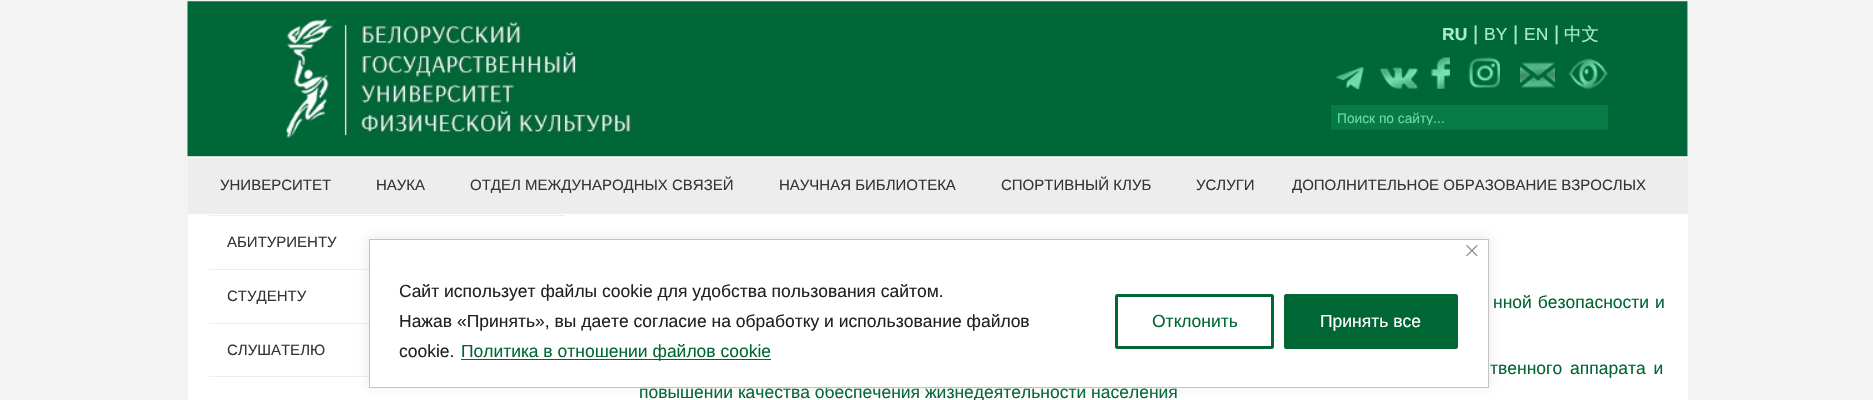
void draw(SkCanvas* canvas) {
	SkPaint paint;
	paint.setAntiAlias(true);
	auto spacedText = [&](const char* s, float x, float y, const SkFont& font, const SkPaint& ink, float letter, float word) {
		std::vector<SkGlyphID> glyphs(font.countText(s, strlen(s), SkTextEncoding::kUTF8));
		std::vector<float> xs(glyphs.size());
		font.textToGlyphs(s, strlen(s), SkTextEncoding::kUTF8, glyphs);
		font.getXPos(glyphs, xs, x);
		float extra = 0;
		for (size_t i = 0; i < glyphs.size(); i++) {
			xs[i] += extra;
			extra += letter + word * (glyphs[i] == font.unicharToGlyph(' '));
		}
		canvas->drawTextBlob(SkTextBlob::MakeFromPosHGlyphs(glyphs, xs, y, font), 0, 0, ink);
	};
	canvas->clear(0xfff3f3f3);
	paint.setColor(0xffffffff);
	canvas->drawRect(SkRect::MakeXYWH(188, 1, 1500, 399), paint);
	canvas->drawImageRect(SkImages::DeferredFromEncodedData(SkData::MakeFromFileName("img1.png")), SkRect::MakeXYWH(187, 1, 1501, 156), SkSamplingOptions());
	canvas->drawImageRect(SkImages::DeferredFromEncodedData(SkData::MakeFromFileName("img2.png")), SkRect::MakeXYWH(286, 18, 47, 120), SkSamplingOptions());
	SkFont f1(fontMgr->matchFamilyStyle("Liberation Sans", SkFontStyle::Bold()), 17.5);
	f1.setSubpixel(true);
	paint.setColor(0xffaaeacd);
	canvas->drawString("RU", 1442, 40, f1, paint);
	SkFont f2(fontMgr->matchFamilyStyle("Liberation Sans", SkFontStyle::Normal()), 20);
	f2.setSubpixel(true);
	canvas->drawString("|", 1473, 40, f2, paint);
	SkFont f3(fontMgr->matchFamilyStyle("Liberation Sans", SkFontStyle::Normal()), 17.5);
	f3.setSubpixel(true);
	canvas->drawString("BY", 1484, 40, f3, paint);
	canvas->drawString("|", 1513, 40, f2, paint);
	canvas->drawString("EN", 1524, 40, f3, paint);
	canvas->drawString("|", 1554, 40, f2, paint);
	SkFont f4(fontMgr->matchFamilyStyle("WenQuanYi Zen Hei", SkFontStyle(500, SkFontStyle::kNormal_Width, SkFontStyle::kUpright_Slant)), 17.5);
	f4.setSubpixel(true);
	canvas->drawString("中文", 1564, 40, f4, paint);
	canvas->drawImageRect(SkImages::DeferredFromEncodedData(SkData::MakeFromFileName("img3.png")), SkRect::MakeXYWH(1336, 66, 28, 24), SkSamplingOptions());
	canvas->drawImageRect(SkImages::DeferredFromEncodedData(SkData::MakeFromFileName("img4.png")), SkRect::MakeXYWH(1380, 67, 38, 22), SkSamplingOptions());
	canvas->drawImageRect(SkImages::DeferredFromEncodedData(SkData::MakeFromFileName("img5.png")), SkRect::MakeXYWH(1431, 57, 19, 32), SkSamplingOptions());
	canvas->drawImageRect(SkImages::DeferredFromEncodedData(SkData::MakeFromFileName("img6.png")), SkRect::MakeXYWH(1468, 57, 32, 31), SkSamplingOptions());
	canvas->drawImageRect(SkImages::DeferredFromEncodedData(SkData::MakeFromFileName("img7.png")), SkRect::MakeXYWH(1520, 62, 35, 26), SkSamplingOptions());
	canvas->drawImageRect(SkImages::DeferredFromEncodedData(SkData::MakeFromFileName("img8.png")), SkRect::MakeXYWH(1568, 58, 40, 31), SkSamplingOptions());
	paint.setColor(0xff067b46);
	canvas->drawRect(SkRect::MakeXYWH(1330.5, 104.5, 278, 26), paint);
	paint.setStroke(true);
	paint.setStrokeWidth(1);
	paint.setColor(0xff006633);
	canvas->drawRect(SkRect::MakeXYWH(1330.5, 104.5, 278, 26), paint);
	canvas->save();
	canvas->clipRect(SkRect::MakeXYWH(1338, 110, 270, 15));
	SkFont f5(fontMgr->matchFamilyStyle("Liberation Sans", SkFontStyle::Normal()), 13.75);
	f5.setSubpixel(true);
	paint.setStroke(false);
	paint.setColor(0xff6cd7a7);
	canvas->drawString("Поиск по сайту...", 1337, 123, f5, paint);
	canvas->restore();
	paint.setColor(0xffededed);
	canvas->drawRect(SkRect::MakeXYWH(188, 158, 1500, 56), paint);
	SkFont f6(fontMgr->matchFamilyStyle("Liberation Sans", SkFontStyle::Normal()), 15);
	f6.setSubpixel(true);
	paint.setColor(0xff353535);
	canvas->drawString("УНИВЕРСИТЕТ", 220, 190, f6, paint);
	canvas->drawString("НАУКА", 376, 190, f6, paint);
	canvas->drawString("ОТДЕЛ МЕЖДУНАРОДНЫХ СВЯЗЕЙ", 470, 190, f6, paint);
	canvas->drawString("НАУЧНАЯ БИБЛИОТЕКА", 779, 190, f6, paint);
	canvas->drawString("СПОРТИВНЫЙ КЛУБ", 1001, 190, f6, paint);
	canvas->drawString("УСЛУГИ", 1196, 190, f6, paint);
	canvas->drawString("ДОПОЛНИТЕЛЬНОЕ ОБРАЗОВАНИЕ ВЗРОСЛЫХ", 1292, 190, f6, paint);
	paint.setColor(0xffeeeeee);
	canvas->drawRect(SkRect::MakeXYWH(209, 215, 356, 1), paint);
	canvas->drawRect(SkRect::MakeXYWH(209, 269, 160, 1), paint);
	paint.setColor(0xff353535);
	canvas->drawString("АБИТУРИЕНТУ", 227, 247, f6, paint);
	paint.setColor(0xffeeeeee);
	canvas->drawRect(SkRect::MakeXYWH(209, 323, 160, 1), paint);
	paint.setColor(0xff353535);
	canvas->drawString("СТУДЕНТУ", 227, 301, f6, paint);
	paint.setColor(0xffeeeeee);
	canvas->drawRect(SkRect::MakeXYWH(209, 376, 160, 1), paint);
	paint.setColor(0xff353535);
	canvas->drawString("СЛУШАТЕЛЮ", 227, 355, f6, paint);
	paint.setColor(0xff006633);
	spacedText("нной безопасности и", 1493, 308, f3, paint, 0, 1);
	spacedText("твенного аппарата и", 1490, 374, f3, paint, 0, 3);
	canvas->drawString("повышении качества обеспечения жизнедеятельности населения", 639, 398, f3, paint);
	paint.setColor(0x4dacabab);
	paint.setMaskFilter(SkMaskFilter::MakeBlur(kNormal_SkBlurStyle, 6));
	canvas->drawRect(SkRect::MakeXYWH(369, 238, 1120, 148), paint);
	paint.setMaskFilter(nullptr);
	paint.setColor(0xffffffff);
	canvas->drawRect(SkRect::MakeXYWH(369.5, 239.5, 1119, 148), paint);
	paint.setStroke(true);
	paint.setColor(0xffc4c4c4);
	canvas->drawRect(SkRect::MakeXYWH(369.5, 239.5, 1119, 148), paint);
	canvas->drawImageRect(SkImages::DeferredFromEncodedData(SkData::MakeFromFileName("img9.png")), SkRect::MakeXYWH(1466, 245, 12, 11), SkSamplingOptions());
	paint.setStroke(false);
	paint.setColor(0xff212121);
	canvas->drawString("Сайт использует файлы cookie для удобства пользования сайтом.", 399, 297, f3, paint);
	canvas->drawString("Нажав «Принять», вы даете согласие на обработку и использование файлов", 399, 327, f3, paint);
	canvas->drawString("cookie.", 399, 357, f3, paint);
	paint.setColor(0xff006633);
	canvas->drawRect(SkRect::MakeXYWH(461, 359, 310, 1), paint);
	canvas->drawString("Политика в отношении файлов cookie", 461, 357, f3, paint);
	paint.setStroke(true);
	paint.setStrokeWidth(3);
	canvas->drawRoundRect(SkRect::MakeXYWH(1116.5, 295.5, 156, 52), 1, 1, paint);
	paint.setStroke(false);
	canvas->drawString("Отклонить", 1152, 327, f3, paint);
	canvas->drawRoundRect(SkRect::MakeXYWH(1285.5, 295.5, 171, 52), 1, 1, paint);
	paint.setStroke(true);
	canvas->drawRoundRect(SkRect::MakeXYWH(1285.5, 295.5, 171, 52), 1, 1, paint);
	paint.setStroke(false);
	paint.setColor(0xffffffff);
	canvas->drawString("Принять все", 1320, 327, f3, paint);
}
